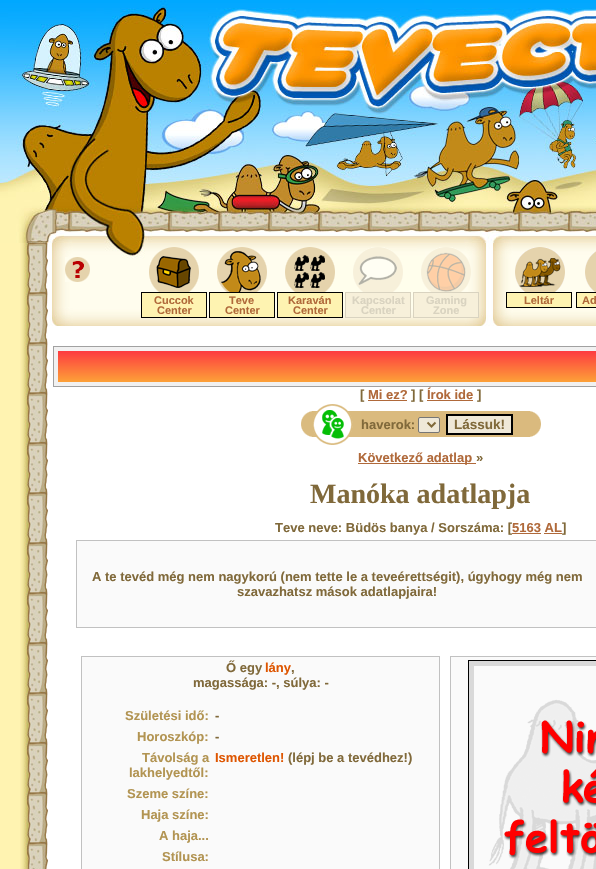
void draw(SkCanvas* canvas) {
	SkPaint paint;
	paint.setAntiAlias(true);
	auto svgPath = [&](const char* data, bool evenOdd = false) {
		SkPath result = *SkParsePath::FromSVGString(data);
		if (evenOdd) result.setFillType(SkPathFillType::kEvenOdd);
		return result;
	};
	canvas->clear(0xfffff3b1);
	canvas->drawImageRect(SkImages::DeferredFromEncodedData(SkData::MakeFromFileName("img1.png")), SkRect::MakeXYWH(0, 0, 596, 243), SkSamplingOptions());
	canvas->drawImageRect(SkImages::DeferredFromEncodedData(SkData::MakeFromFileName("img2.png")), SkRect::MakeXYWH(20, 243, 29, 626), SkSamplingOptions());
	paint.setColor(0xffffffff);
	canvas->drawRect(SkRect::MakeXYWH(49, 326, 547, 543), paint);
	canvas->drawImageRect(SkImages::DeferredFromEncodedData(SkData::MakeFromFileName("img3.png")), SkRect::MakeXYWH(49, 243, 547, 83), SkSamplingOptions());
	canvas->drawImageRect(SkImages::DeferredFromEncodedData(SkData::MakeFromFileName("img4.png")), SkRect::MakeXYWH(65, 257, 25, 25), SkSamplingOptions());
	canvas->drawImageRect(SkImages::DeferredFromEncodedData(SkData::MakeFromFileName("img5.png")), SkRect::MakeXYWH(149, 247, 50, 45), SkSamplingOptions());
	paint.setColor(0xfffef3b1);
	canvas->drawRect(SkRect::MakeXYWH(141.5, 292.5, 65, 25), paint);
	paint.setStroke(true);
	paint.setStrokeWidth(1);
	paint.setColor(0xff000000);
	canvas->drawRect(SkRect::MakeXYWH(141.5, 292.5, 65, 25), paint);
	SkFont f1(fontMgr->matchFamilyStyle("Liberation Sans", SkFontStyle::Bold()), 11);
	f1.setSubpixel(true);
	paint.setStroke(false);
	paint.setColor(0xffb0693a);
	canvas->drawString("Cuccok", 154, 304, f1, paint);
	canvas->drawString("Center", 157, 314, f1, paint);
	canvas->drawImageRect(SkImages::DeferredFromEncodedData(SkData::MakeFromFileName("img6.png")), SkRect::MakeXYWH(217, 247, 50, 45), SkSamplingOptions());
	paint.setColor(0xfffef3b1);
	canvas->drawRect(SkRect::MakeXYWH(209.5, 292.5, 65, 25), paint);
	paint.setStroke(true);
	paint.setColor(0xff000000);
	canvas->drawRect(SkRect::MakeXYWH(209.5, 292.5, 65, 25), paint);
	paint.setStroke(false);
	paint.setColor(0xffb0693a);
	canvas->drawString("Teve", 229, 304, f1, paint);
	canvas->drawString("Center", 225, 314, f1, paint);
	canvas->drawImageRect(SkImages::DeferredFromEncodedData(SkData::MakeFromFileName("img7.png")), SkRect::MakeXYWH(285, 247, 50, 45), SkSamplingOptions());
	paint.setColor(0xfffef3b1);
	canvas->drawRect(SkRect::MakeXYWH(277.5, 292.5, 65, 25), paint);
	paint.setStroke(true);
	paint.setColor(0xff000000);
	canvas->drawRect(SkRect::MakeXYWH(277.5, 292.5, 65, 25), paint);
	paint.setStroke(false);
	paint.setColor(0xffb0693a);
	canvas->drawString("Karaván", 288, 304, f1, paint);
	canvas->drawString("Center", 293, 314, f1, paint);
	canvas->drawImageRect(SkImages::DeferredFromEncodedData(SkData::MakeFromFileName("img8.png")), SkRect::MakeXYWH(353, 247, 50, 45), SkSamplingOptions());
	paint.setColor(0xfff7f0da);
	canvas->drawRect(SkRect::MakeXYWH(345.5, 292.5, 65, 25), paint);
	paint.setStroke(true);
	paint.setColor(0xffd9d3c0);
	canvas->drawRect(SkRect::MakeXYWH(345.5, 292.5, 65, 25), paint);
	paint.setStroke(false);
	canvas->drawString("Kapcsolat", 352, 304, f1, paint);
	canvas->drawString("Center", 361, 314, f1, paint);
	canvas->drawImageRect(SkImages::DeferredFromEncodedData(SkData::MakeFromFileName("img9.png")), SkRect::MakeXYWH(421, 247, 50, 45), SkSamplingOptions());
	paint.setColor(0xfff7f0da);
	canvas->drawRect(SkRect::MakeXYWH(413.5, 292.5, 65, 25), paint);
	paint.setStroke(true);
	paint.setColor(0xffd9d3c0);
	canvas->drawRect(SkRect::MakeXYWH(413.5, 292.5, 65, 25), paint);
	paint.setStroke(false);
	canvas->drawString("Gaming", 426, 304, f1, paint);
	canvas->drawString("Zone", 433, 314, f1, paint);
	canvas->drawImageRect(SkImages::DeferredFromEncodedData(SkData::MakeFromFileName("img10.png")), SkRect::MakeXYWH(515, 247, 50, 45), SkSamplingOptions());
	paint.setColor(0xfffef3b1);
	canvas->drawRect(SkRect::MakeXYWH(506.5, 292.5, 65, 15), paint);
	paint.setStroke(true);
	paint.setColor(0xff000000);
	canvas->drawRect(SkRect::MakeXYWH(506.5, 292.5, 65, 15), paint);
	paint.setStroke(false);
	paint.setColor(0xffb0693a);
	canvas->drawString("Leltár", 524, 304, f1, paint);
	canvas->drawImageRect(SkImages::DeferredFromEncodedData(SkData::MakeFromFileName("img11.png")), SkRect::MakeXYWH(585, 251, 11, 41), SkSamplingOptions());
	paint.setColor(0xfffef3b1);
	canvas->drawRect(SkRect::MakeXYWH(576.5, 292.5, 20, 15), paint);
	paint.setStroke(true);
	paint.setColor(0xff000000);
	canvas->drawRect(SkRect::MakeXYWH(576.5, 292.5, 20, 15), paint);
	paint.setStroke(false);
	paint.setColor(0xffb0693a);
	canvas->drawString("Ad", 582, 304, f1, paint);
	paint.setStroke(true);
	paint.setColor(0xffa1a1a1);
	canvas->drawRect(SkRect::MakeXYWH(53.5, 346.5, 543, 40), paint);
	paint.setStrokeWidth(4);
	paint.setColor(0xfff1f1f1);
	canvas->drawRect(SkRect::MakeXYWH(56, 349, 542, 35), paint);
	paint.setStroke(false);
	{
		const SkColor colors[] = {0xfffd3a40, 0xfffda138};
		const float stops[] = {0, 1};
		const SkPoint ends[] = {{421, 351}, {421, 382}};
		paint.setShader(SkGradientShader::MakeLinear(ends, colors, stops, 2, SkTileMode::kClamp));
		paint.setAlpha(255);
	}
	canvas->drawRect(SkRect::MakeXYWH(58, 351, 538, 31), paint);
	SkFont f2(fontMgr->matchFamilyStyle("Liberation Sans", SkFontStyle::Bold()), 13);
	f2.setSubpixel(true);
	paint.setShader(nullptr);
	paint.setColor(0xff80693a);
	canvas->drawString("[", 360, 399, f2, paint);
	paint.setColor(0xffb0693a);
	canvas->drawString("Mi ez?", 368, 399, f2, paint);
	canvas->drawRect(SkRect::MakeXYWH(368, 400, 39, 1), paint);
	paint.setColor(0xff80693a);
	canvas->drawString("] [", 411, 399, f2, paint);
	paint.setColor(0xffb0693a);
	canvas->drawString("Írok ide", 427, 399, f2, paint);
	canvas->drawRect(SkRect::MakeXYWH(427, 400, 46, 1), paint);
	paint.setColor(0xff80693a);
	canvas->drawString("]", 477, 399, f2, paint);
	canvas->drawImageRect(SkImages::DeferredFromEncodedData(SkData::MakeFromFileName("img12.png")), SkRect::MakeXYWH(301, 404, 60, 41), SkSamplingOptions());
	paint.setColor(0xffdaba7e);
	canvas->drawRect(SkRect::MakeXYWH(361, 411, 155, 26), paint);
	paint.setColor(0xff80693a);
	canvas->drawString("haverok:", 361, 429, f2, paint);
	paint.setColor(0xffefe8d8);
	canvas->drawRoundRect(SkRect::MakeXYWH(418.5, 417.5, 21, 15), 1.5, 1.5, paint);
	paint.setStroke(true);
	paint.setStrokeWidth(1);
	paint.setColor(0xff767676);
	canvas->drawRoundRect(SkRect::MakeXYWH(418.5, 417.5, 21, 15), 1.5, 1.5, paint);
	paint.setStrokeWidth(2);
	paint.setColor(0xff80693a);
	canvas->drawPath(svgPath("M427.5 422.5L431.5 426.5L435.5 422.5"), paint);
	paint.setStroke(false);
	paint.setColor(0xffefe8d8);
	canvas->drawRect(SkRect::MakeXYWH(447, 415, 65, 19), paint);
	paint.setStroke(true);
	paint.setColor(0xff000000);
	canvas->drawRect(SkRect::MakeXYWH(447, 415, 65, 19), paint);
	SkFont f3(fontMgr->matchFamilyStyle("Liberation Sans", SkFontStyle::Bold()), 13.5);
	f3.setSubpixel(true);
	paint.setStroke(false);
	paint.setColor(0xff80693a);
	canvas->drawString("Lássuk!", 454, 429, f3, paint);
	canvas->drawImageRect(SkImages::DeferredFromEncodedData(SkData::MakeFromFileName("img13.png")), SkRect::MakeXYWH(516, 411, 25, 26), SkSamplingOptions());
	paint.setColor(0xffb0693a);
	canvas->drawRect(SkRect::MakeXYWH(358, 463, 118, 1), paint);
	canvas->drawString("Következő adatlap", 358, 462, f2, paint);
	paint.setColor(0xff80693a);
	canvas->drawString("»", 476, 462, f2, paint);
	SkFont f4(fontMgr->matchFamilyStyle("Liberation Serif", SkFontStyle::Bold()), 28);
	f4.setSubpixel(true);
	canvas->drawString("Manóka adatlapja", 310, 503, f4, paint);
	canvas->drawString("Teve neve: Büdös banya / Sorszáma: [", 275, 532, f2, paint);
	paint.setColor(0xffb0693a);
	canvas->drawString("5163 AL", 512, 532, f2, paint);
	canvas->drawRect(SkRect::MakeXYWH(512, 533, 29, 1), paint);
	canvas->drawRect(SkRect::MakeXYWH(544, 533, 18, 1), paint);
	paint.setColor(0xff80693a);
	canvas->drawString("]", 562, 532, f2, paint);
	paint.setColor(0xfffafafa);
	canvas->drawRect(SkRect::MakeXYWH(76.5, 540.5, 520, 87), paint);
	paint.setStroke(true);
	paint.setStrokeWidth(1);
	paint.setColor(0xffc1c1c1);
	canvas->drawRect(SkRect::MakeXYWH(76.5, 540.5, 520, 87), paint);
	paint.setStroke(false);
	paint.setColor(0xff80693a);
	canvas->drawString("A te tevéd még nem nagykorú (nem tette le a teveérettségit), úgyhogy még nem", 92, 581, f2, paint);
	canvas->drawString("szavazhatsz mások adatlapjaira!", 237, 596, f2, paint);
	paint.setColor(0xfffafafa);
	canvas->drawRect(SkRect::MakeXYWH(81.5, 656.5, 358, 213), paint);
	paint.setStroke(true);
	paint.setColor(0xffc1c1c1);
	canvas->drawRect(SkRect::MakeXYWH(81.5, 656.5, 358, 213), paint);
	paint.setStroke(false);
	paint.setColor(0xff80693a);
	canvas->drawString("Ő egy", 226, 672, f2, paint);
	paint.setColor(0xffde5500);
	canvas->drawString("lány", 265, 672, f2, paint);
	paint.setColor(0xff80693a);
	canvas->drawString(",", 291, 672, f2, paint);
	canvas->drawString("magassága: -, súlya: -", 193, 687, f2, paint);
	paint.setColor(0xffb29452);
	canvas->drawString("Születési idő:", 125, 720, f2, paint);
	paint.setColor(0xff80693a);
	canvas->drawString("-", 215, 720, f2, paint);
	paint.setColor(0xffb29452);
	canvas->drawString("Horoszkóp:", 137, 741, f2, paint);
	paint.setColor(0xff80693a);
	canvas->drawString("-", 215, 741, f2, paint);
	paint.setColor(0xffb29452);
	canvas->drawString("Távolság a", 142, 762, f2, paint);
	canvas->drawString("lakhelyedtől:", 129, 777, f2, paint);
	paint.setColor(0xffde5500);
	canvas->drawString("Ismeretlen!", 215, 762, f2, paint);
	paint.setColor(0xff80693a);
	canvas->drawString("(lépj be a tevédhez!)", 288, 762, f2, paint);
	paint.setColor(0xffb29452);
	canvas->drawString("Szeme színe:", 127, 798, f2, paint);
	canvas->drawString("Haja színe:", 141, 819, f2, paint);
	canvas->drawString("A haja...", 159, 840, f2, paint);
	canvas->drawString("Stílusa:", 162, 861, f2, paint);
	paint.setColor(0xfffafafa);
	canvas->drawRect(SkRect::MakeXYWH(450.5, 656.5, 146, 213), paint);
	paint.setStroke(true);
	paint.setColor(0xffc1c1c1);
	canvas->drawRect(SkRect::MakeXYWH(450.5, 656.5, 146, 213), paint);
	paint.setColor(0xff000000);
	canvas->drawRect(SkRect::MakeXYWH(468.5, 660.5, 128, 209), paint);
	canvas->drawImageRect(SkImages::DeferredFromEncodedData(SkData::MakeFromFileName("img14.png")), SkRect::MakeXYWH(469, 661, 127, 208), SkSamplingOptions());
}
